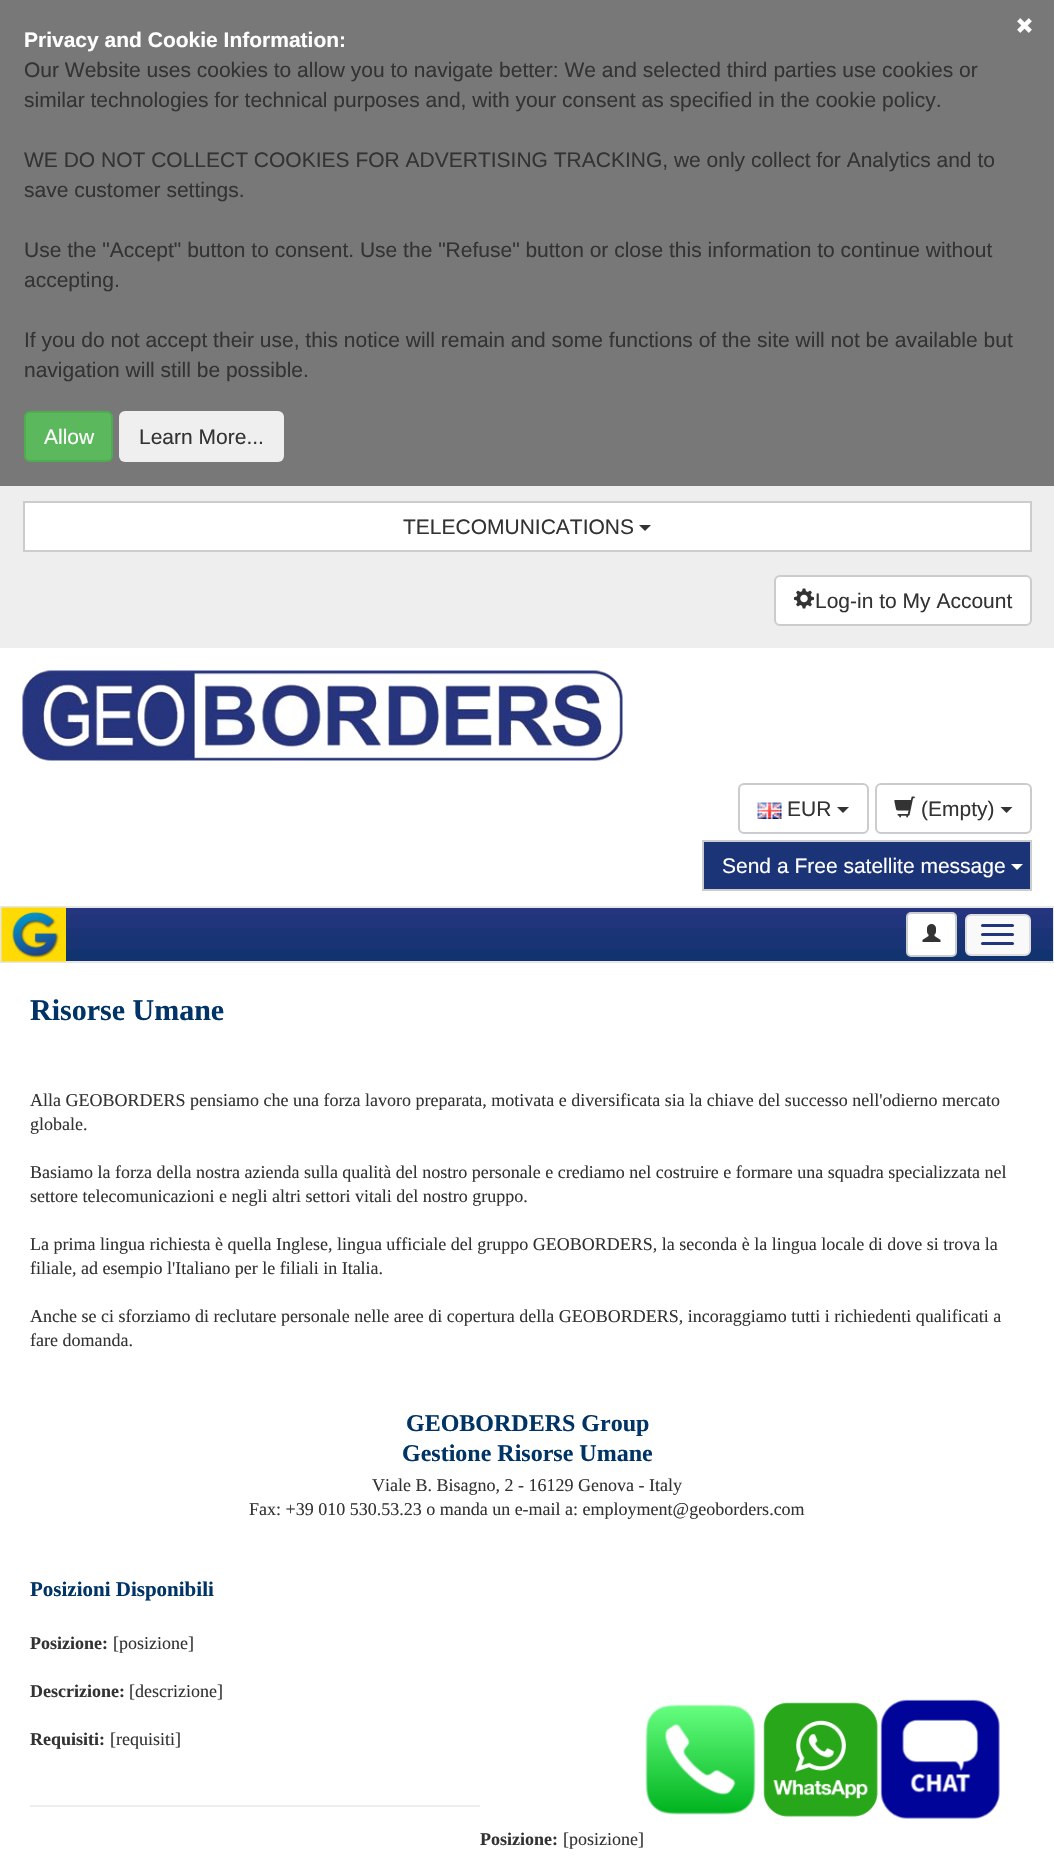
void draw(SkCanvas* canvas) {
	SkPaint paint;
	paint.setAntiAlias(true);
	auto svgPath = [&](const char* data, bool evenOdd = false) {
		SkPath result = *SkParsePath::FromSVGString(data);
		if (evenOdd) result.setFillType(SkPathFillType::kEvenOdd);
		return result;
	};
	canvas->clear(0xffeeeeee);
	paint.setColor(0xff787878);
	canvas->drawRect(SkRect::MakeXYWH(0, 0, 1054, 486), paint);
	canvas->drawImageRect(SkImages::DeferredFromEncodedData(SkData::MakeFromFileName("img1.png")), SkRect::MakeXYWH(1017, 18, 15, 15), SkSamplingOptions());
	SkFont f1(fontMgr->matchFamilyStyle("Liberation Sans", SkFontStyle::Bold()), 21);
	f1.setSubpixel(true);
	paint.setColor(0xffffffff);
	canvas->drawString("Privacy and Cookie Information:", 24, 47, f1, paint);
	SkFont f2(fontMgr->matchFamilyStyle("Liberation Sans", SkFontStyle::Normal()), 21);
	f2.setSubpixel(true);
	paint.setColor(0xff333333);
	canvas->drawString("Our Website uses cookies to allow you to navigate better: We and selected third parties use cookies or", 24, 77, f2, paint);
	canvas->drawString("similar technologies for technical purposes and, with your consent as specified in the cookie policy.", 24, 107, f2, paint);
	canvas->drawString("WE DO NOT COLLECT COOKIES FOR ADVERTISING TRACKING, we only collect for Analytics and to", 24, 167, f2, paint);
	canvas->drawString("save customer settings.", 24, 197, f2, paint);
	canvas->drawString("Use the \"Accept\" button to consent. Use the \"Refuse\" button or close this information to continue without", 24, 257, f2, paint);
	canvas->drawString("accepting.", 24, 287, f2, paint);
	canvas->drawString("If you do not accept their use, this notice will remain and some functions of the site will not be available but", 24, 347, f2, paint);
	canvas->drawString("navigation will still be possible.", 24, 377, f2, paint);
	paint.setColor(0xff5cb85c);
	canvas->drawRoundRect(SkRect::MakeXYWH(25, 412, 87, 49), 5, 5, paint);
	paint.setStroke(true);
	paint.setStrokeWidth(2);
	paint.setColor(0xff4cae4c);
	canvas->drawRoundRect(SkRect::MakeXYWH(25, 412, 87, 49), 5, 5, paint);
	paint.setStroke(false);
	paint.setColor(0xffffffff);
	canvas->drawString("Allow", 44, 444, f2, paint);
	paint.setColor(0xffefefef);
	canvas->drawRoundRect(SkRect::MakeXYWH(119, 411, 165, 51), 6, 6, paint);
	paint.setColor(0xff333333);
	canvas->drawString("Learn More...", 139, 444, f2, paint);
	paint.setColor(0xffffffff);
	canvas->drawRect(SkRect::MakeXYWH(24, 502, 1007, 49), paint);
	paint.setStroke(true);
	paint.setColor(0xffcccccc);
	canvas->drawRect(SkRect::MakeXYWH(24, 502, 1007, 49), paint);
	paint.setStroke(false);
	paint.setColor(0xff333333);
	canvas->drawString("TELECOMUNICATIONS", 403, 534, f2, paint);
	canvas->drawPath(svgPath("M639 525H651L645 531Z"), paint);
	paint.setColor(0xffffffff);
	canvas->drawRoundRect(SkRect::MakeXYWH(775, 576, 256, 49), 5, 5, paint);
	paint.setStroke(true);
	paint.setColor(0xffcccccc);
	canvas->drawRoundRect(SkRect::MakeXYWH(775, 576, 256, 49), 5, 5, paint);
	canvas->drawImageRect(SkImages::DeferredFromEncodedData(SkData::MakeFromFileName("img2.png")), SkRect::MakeXYWH(793, 588, 22, 21), SkSamplingOptions());
	paint.setStroke(false);
	paint.setColor(0xff333333);
	canvas->drawString("Log-in to My Account", 815, 608, f2, paint);
	paint.setColor(0xffffffff);
	canvas->drawRect(SkRect::MakeXYWH(0, 648, 1054, 1225), paint);
	canvas->drawImageRect(SkImages::DeferredFromEncodedData(SkData::MakeFromFileName("img3.png")), SkRect::MakeXYWH(22, 670, 601, 91), SkSamplingOptions());
	paint.setStroke(true);
	paint.setColor(0xffcccccc);
	canvas->drawRoundRect(SkRect::MakeXYWH(739, 784, 129, 49), 5, 5, paint);
	canvas->drawImageRect(SkImages::DeferredFromEncodedData(SkData::MakeFromFileName("img4.png")), SkRect::MakeXYWH(757, 802, 25, 17), SkSamplingOptions());
	paint.setStroke(false);
	paint.setColor(0xff333333);
	canvas->drawString("EUR", 787, 816, f2, paint);
	canvas->drawPath(svgPath("M837 807H849L843 813Z"), paint);
	paint.setStroke(true);
	paint.setColor(0xffcccccc);
	canvas->drawRoundRect(SkRect::MakeXYWH(876, 784, 155, 49), 5, 5, paint);
	canvas->drawImageRect(SkImages::DeferredFromEncodedData(SkData::MakeFromFileName("img5.png")), SkRect::MakeXYWH(894, 796, 21, 22), SkSamplingOptions());
	paint.setStroke(false);
	paint.setColor(0xff333333);
	canvas->drawString("(Empty)", 921, 816, f2, paint);
	canvas->drawPath(svgPath("M1000.5 807H1012.5L1006.5 813Z"), paint);
	paint.setColor(0xff1b3478);
	canvas->drawRect(SkRect::MakeXYWH(703, 841, 328, 49), paint);
	paint.setStroke(true);
	paint.setColor(0xffcccccc);
	canvas->drawRect(SkRect::MakeXYWH(703, 841, 328, 49), paint);
	paint.setStroke(false);
	paint.setColor(0xffffffff);
	canvas->drawString("Send a Free satellite message", 722, 873, f2, paint);
	canvas->drawPath(svgPath("M1011 864H1023L1017 870Z"), paint);
	canvas->drawImageRect(SkImages::DeferredFromEncodedData(SkData::MakeFromFileName("img6.png")), SkRect::MakeXYWH(66, 908, 987, 53), SkSamplingOptions());
	paint.setStroke(true);
	paint.setColor(0xffe7e7e7);
	canvas->drawRect(SkRect::MakeXYWH(1, 907, 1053, 55), paint);
	canvas->drawImageRect(SkImages::DeferredFromEncodedData(SkData::MakeFromFileName("img7.png")), SkRect::MakeXYWH(1, 907, 65, 55), SkSamplingOptions());
	paint.setStroke(false);
	paint.setColor(0xffffffff);
	canvas->drawRoundRect(SkRect::MakeXYWH(907, 913, 49, 43), 4, 4, paint);
	paint.setStroke(true);
	paint.setColor(0xffcccccc);
	canvas->drawRoundRect(SkRect::MakeXYWH(907, 913, 49, 43), 4, 4, paint);
	canvas->drawImageRect(SkImages::DeferredFromEncodedData(SkData::MakeFromFileName("img8.png")), SkRect::MakeXYWH(922, 924, 19, 18), SkSamplingOptions());
	paint.setStroke(false);
	paint.setColor(0xfff9f9f9);
	canvas->drawRoundRect(SkRect::MakeXYWH(966, 915, 64, 40), 5, 5, paint);
	paint.setStroke(true);
	paint.setColor(0xffdddddd);
	canvas->drawRoundRect(SkRect::MakeXYWH(966, 915, 64, 40), 5, 5, paint);
	paint.setStroke(false);
	paint.setColor(0xff20357b);
	canvas->drawRoundRect(SkRect::MakeXYWH(981, 924, 33, 3), 1.5, 1.5, paint);
	canvas->drawRoundRect(SkRect::MakeXYWH(981, 933, 33, 3), 1.5, 1.5, paint);
	canvas->drawRoundRect(SkRect::MakeXYWH(981, 942, 33, 3), 1.5, 1.5, paint);
	SkFont f3(fontMgr->matchFamilyStyle("Liberation Serif", SkFontStyle::Bold()), 30);
	f3.setSubpixel(true);
	paint.setColor(0xff003366);
	canvas->drawString("Risorse Umane", 30, 1020, f3, paint);
	SkFont f4(fontMgr->matchFamilyStyle("Liberation Serif", SkFontStyle::Normal()), 18);
	f4.setSubpixel(true);
	paint.setColor(0xff333333);
	canvas->drawString("Alla GEOBORDERS pensiamo che una forza lavoro preparata, motivata e diversificata sia la chiave del successo nell'odierno mercato", 30, 1106, f4, paint);
	canvas->drawString("globale.", 30, 1130, f4, paint);
	canvas->drawString("Basiamo la forza della nostra azienda sulla qualità del nostro personale e crediamo nel costruire e formare una squadra specializzata nel", 30, 1178, f4, paint);
	canvas->drawString("settore telecomunicazioni e negli altri settori vitali del nostro gruppo.", 30, 1202, f4, paint);
	canvas->drawString("La prima lingua richiesta è quella Inglese, lingua ufficiale del gruppo GEOBORDERS, la seconda è la lingua locale di dove si trova la", 30, 1250, f4, paint);
	canvas->drawString("filiale, ad esempio l'Italiano per le filiali in Italia.", 30, 1274, f4, paint);
	canvas->drawString("Anche se ci sforziamo di reclutare personale nelle aree di copertura della GEOBORDERS, incoraggiamo tutti i richiedenti qualificati a", 30, 1322, f4, paint);
	canvas->drawString("fare domanda.", 30, 1346, f4, paint);
	SkFont f5(fontMgr->matchFamilyStyle("Liberation Serif", SkFontStyle::Bold()), 24);
	f5.setSubpixel(true);
	paint.setColor(0xff003366);
	canvas->drawString("GEOBORDERS Group", 406, 1431, f5, paint);
	canvas->drawString("Gestione Risorse Umane", 402, 1461, f5, paint);
	paint.setColor(0xff333333);
	canvas->drawString("Viale B. Bisagno, 2 - 16129 Genova - Italy", 372, 1491, f4, paint);
	canvas->drawString("Fax: +39 010 530.53.23 o manda un e-mail a: employment@geoborders.com", 249, 1515, f4, paint);
	SkFont f6(fontMgr->matchFamilyStyle("Liberation Serif", SkFontStyle::Bold()), 21);
	f6.setSubpixel(true);
	paint.setColor(0xff003366);
	canvas->drawString("Posizioni Disponibili", 30, 1596, f6, paint);
	SkFont f7(fontMgr->matchFamilyStyle("Liberation Serif", SkFontStyle::Bold()), 18);
	f7.setSubpixel(true);
	paint.setColor(0xff333333);
	canvas->drawString("Posizione:", 30, 1649, f7, paint);
	canvas->drawString("[posizione]", 113, 1649, f4, paint);
	canvas->drawString("Descrizione:", 30, 1697, f7, paint);
	canvas->drawString("[descrizione]", 129, 1697, f4, paint);
	canvas->drawString("Requisiti:", 30, 1745, f7, paint);
	canvas->drawString("[requisiti]", 110, 1745, f4, paint);
	paint.setColor(0xffeeeeee);
	canvas->drawRect(SkRect::MakeXYWH(30, 1805, 450, 2), paint);
	paint.setColor(0xff333333);
	canvas->drawString("Posizione:", 480, 1845, f7, paint);
	canvas->drawString("[posizione]", 563, 1845, f4, paint);
	canvas->drawImageRect(SkImages::DeferredFromEncodedData(SkData::MakeFromFileName("img9.png")), SkRect::MakeXYWH(645, 1704, 111, 111), SkSamplingOptions());
	canvas->drawImageRect(SkImages::DeferredFromEncodedData(SkData::MakeFromFileName("img10.png")), SkRect::MakeXYWH(763, 1702, 115, 115), SkSamplingOptions());
	canvas->drawImageRect(SkImages::DeferredFromEncodedData(SkData::MakeFromFileName("img11.png")), SkRect::MakeXYWH(880, 1699, 120, 120), SkSamplingOptions());
}
